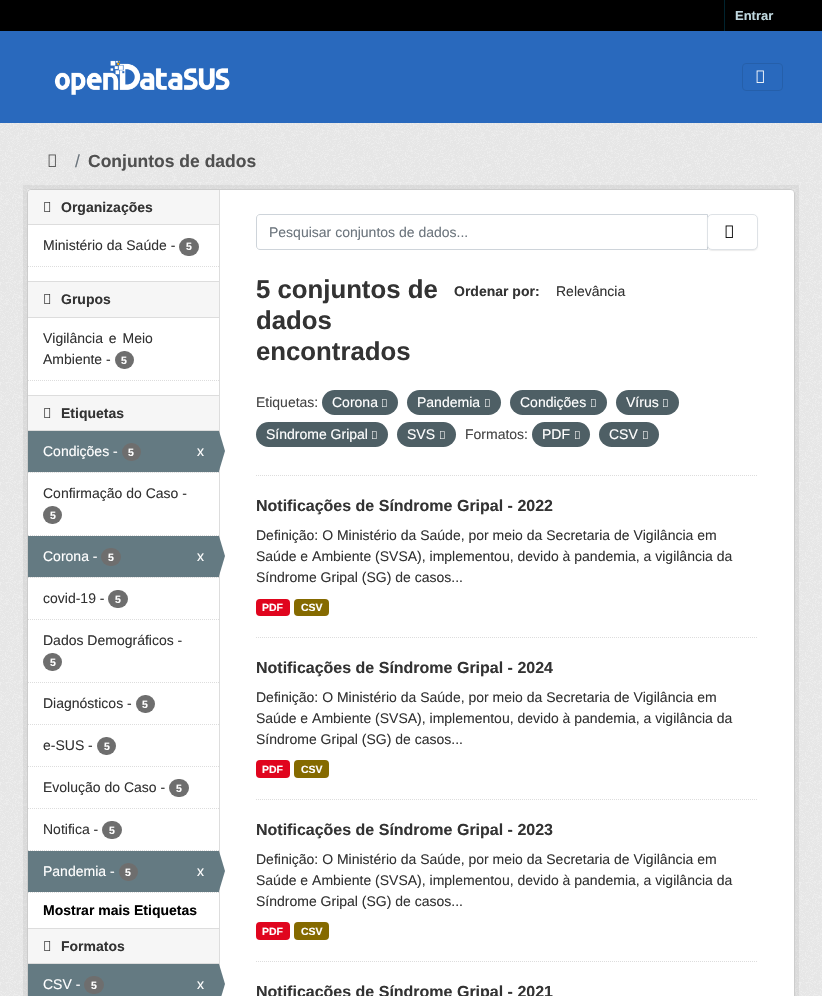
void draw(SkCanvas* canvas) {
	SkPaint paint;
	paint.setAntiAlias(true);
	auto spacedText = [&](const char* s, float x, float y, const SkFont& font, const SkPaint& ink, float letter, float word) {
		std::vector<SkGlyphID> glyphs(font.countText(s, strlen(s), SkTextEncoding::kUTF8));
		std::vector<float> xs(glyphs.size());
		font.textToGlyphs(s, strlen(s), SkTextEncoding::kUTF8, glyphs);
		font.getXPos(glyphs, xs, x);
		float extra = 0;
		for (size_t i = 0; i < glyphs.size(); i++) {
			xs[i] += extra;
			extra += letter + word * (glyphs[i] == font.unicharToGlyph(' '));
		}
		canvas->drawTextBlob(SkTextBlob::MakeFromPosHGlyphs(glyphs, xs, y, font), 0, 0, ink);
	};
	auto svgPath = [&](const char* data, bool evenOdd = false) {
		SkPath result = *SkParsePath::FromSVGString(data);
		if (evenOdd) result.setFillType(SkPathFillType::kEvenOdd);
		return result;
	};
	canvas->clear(0xff000000);
	paint.setColor(0xff00232e);
	canvas->drawRect(SkRect::MakeXYWH(724, 0, 1, 31), paint);
	SkFont f1(fontMgr->matchFamilyStyle("Liberation Sans", SkFontStyle::Bold()), 13);
	f1.setSubpixel(true);
	paint.setColor(0xffbfd7de);
	canvas->drawString("Entrar", 735, 20, f1, paint);
	paint.setColor(0xff2969bd);
	canvas->drawRect(SkRect::MakeXYWH(0, 31, 822, 92), paint);
	canvas->drawImageRect(SkImages::DeferredFromEncodedData(SkData::MakeFromFileName("img1.png")), SkRect::MakeXYWH(54, 60, 176, 35), SkSamplingOptions());
	paint.setStroke(true);
	paint.setStrokeWidth(1);
	paint.setColor(0xff255faa);
	canvas->drawRoundRect(SkRect::MakeXYWH(742.5, 63.5, 40, 27), 3.5, 3.5, paint);
	canvas->drawImageRect(SkImages::DeferredFromEncodedData(SkData::MakeFromFileName("img2.png")), SkRect::MakeXYWH(756, 70, 8, 13), SkSamplingOptions());
	paint.setStroke(false);
	paint.setColor(0xffeeeeee);
	canvas->drawRect(SkRect::MakeXYWH(0, 123, 822, 873), paint);
	canvas->drawImageRect(SkImages::DeferredFromEncodedData(SkData::MakeFromFileName("img3.png")), SkRect::MakeXYWH(0, 123, 822, 873), SkSamplingOptions());
	canvas->drawImageRect(SkImages::DeferredFromEncodedData(SkData::MakeFromFileName("img4.png")), SkRect::MakeXYWH(48, 154, 8, 13), SkSamplingOptions());
	SkFont f2(fontMgr->matchFamilyStyle("Liberation Sans", SkFontStyle::Normal()), 17.5);
	f2.setSubpixel(true);
	paint.setColor(0xff6c757d);
	canvas->drawString("/", 75, 167, f2, paint);
	SkFont f3(fontMgr->matchFamilyStyle("Liberation Sans", SkFontStyle::Bold()), 17.5);
	f3.setSubpixel(true);
	paint.setColor(0xff505050);
	canvas->drawString("Conjuntos de dados", 88, 167, f3, paint);
	paint.setStroke(true);
	paint.setStrokeWidth(4);
	paint.setColor(0x0d000000);
	canvas->drawRect(SkRect::MakeXYWH(25, 187, 772, 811), paint);
	paint.setStroke(false);
	paint.setColor(0xffffffff);
	canvas->drawRoundRect(SkRect::MakeXYWH(27.5, 189.5, 767, 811), 3.5, 3.5, paint);
	paint.setStroke(true);
	paint.setStrokeWidth(1);
	paint.setColor(0xffcccccc);
	canvas->drawRoundRect(SkRect::MakeXYWH(27.5, 189.5, 767, 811), 3.5, 3.5, paint);
	paint.setStroke(false);
	paint.setColor(0xfff6f6f6);
	canvas->drawPath(svgPath("M31 190H219V225H28V193C28 191.5 29.5 190 31 190Z"), paint);
	paint.setColor(0xffdddddd);
	canvas->drawRect(SkRect::MakeXYWH(28, 224, 191, 1), paint);
	canvas->drawImageRect(SkImages::DeferredFromEncodedData(SkData::MakeFromFileName("img5.png")), SkRect::MakeXYWH(44, 202, 7, 10), SkSamplingOptions());
	SkFont f4(fontMgr->matchFamilyStyle("Liberation Sans", SkFontStyle::Bold()), 14);
	f4.setSubpixel(true);
	paint.setColor(0xff333333);
	canvas->drawString("Organizações", 61, 212, f4, paint);
	SkFont f5(fontMgr->matchFamilyStyle("Liberation Sans", SkFontStyle::Normal()), 14);
	f5.setSubpixel(true);
	canvas->drawString("Ministério da Saúde -", 43, 250, f5, paint);
	paint.setColor(0xff6e6e6e);
	canvas->drawRoundRect(SkRect::MakeXYWH(179, 238, 20, 18), 9, 9, paint);
	SkFont f6(fontMgr->matchFamilyStyle("Liberation Sans", SkFontStyle::Bold()), 10.5);
	f6.setSubpixel(true);
	paint.setColor(0xffffffff);
	canvas->drawString("5", 186, 250, f6, paint);
	paint.setStroke(true);
	paint.setColor(0xffdddddd);
	paint.setPathEffect(SkDashPathEffect::Make({{1, 1}}, 0));
	canvas->drawPath(svgPath("M28 266.5H219"), paint);
	paint.setPathEffect(nullptr);
	paint.setStroke(false);
	paint.setColor(0xfff6f6f6);
	canvas->drawRect(SkRect::MakeXYWH(28, 282, 191, 35), paint);
	paint.setColor(0xffdddddd);
	canvas->drawRect(SkRect::MakeXYWH(28, 281, 191, 1), paint);
	canvas->drawRect(SkRect::MakeXYWH(28, 317, 191, 1), paint);
	canvas->drawImageRect(SkImages::DeferredFromEncodedData(SkData::MakeFromFileName("img5.png")), SkRect::MakeXYWH(44, 294, 7, 10), SkSamplingOptions());
	paint.setColor(0xff333333);
	canvas->drawString("Grupos", 61, 304, f4, paint);
	spacedText("Vigilância e Meio", 43, 343, f5, paint, 0, 2);
	canvas->drawString("Ambiente -", 43, 364, f5, paint);
	paint.setColor(0xff6e6e6e);
	canvas->drawRoundRect(SkRect::MakeXYWH(115, 351, 19, 18), 9, 9, paint);
	paint.setColor(0xffffffff);
	canvas->drawString("5", 121, 364, f6, paint);
	paint.setStroke(true);
	paint.setColor(0xffdddddd);
	paint.setPathEffect(SkDashPathEffect::Make({{1, 1}}, 0));
	canvas->drawPath(svgPath("M28 380.5H219"), paint);
	paint.setPathEffect(nullptr);
	paint.setStroke(false);
	paint.setColor(0xfff6f6f6);
	canvas->drawRect(SkRect::MakeXYWH(28, 396, 191, 34), paint);
	paint.setColor(0xffdddddd);
	canvas->drawRect(SkRect::MakeXYWH(28, 395, 191, 1), paint);
	canvas->drawRect(SkRect::MakeXYWH(28, 430, 191, 1), paint);
	canvas->drawImageRect(SkImages::DeferredFromEncodedData(SkData::MakeFromFileName("img5.png")), SkRect::MakeXYWH(44, 408, 7, 10), SkSamplingOptions());
	paint.setColor(0xff333333);
	canvas->drawString("Etiquetas", 61, 418, f4, paint);
	paint.setColor(0xfff6f6f6);
	canvas->drawRect(SkRect::MakeXYWH(29, 472, 189, 1), paint);
	paint.setStroke(true);
	paint.setColor(0xffdddddd);
	paint.setPathEffect(SkDashPathEffect::Make({{1, 1}}, 0));
	canvas->drawPath(svgPath("M28 472.5H219"), paint);
	paint.setPathEffect(nullptr);
	paint.setStroke(false);
	paint.setColor(0xff647a82);
	canvas->drawRect(SkRect::MakeXYWH(28, 431, 191, 41), paint);
	paint.setColor(0xffffffff);
	canvas->drawString("Condições -", 43, 456, f5, paint);
	paint.setColor(0xff6e6e6e);
	canvas->drawRoundRect(SkRect::MakeXYWH(122, 443, 19, 18), 9, 9, paint);
	paint.setColor(0xffffffff);
	canvas->drawString("5", 128, 456, f6, paint);
	canvas->drawString("x", 197, 456, f5, paint);
	paint.setColor(0xffdddddd);
	canvas->drawRect(SkRect::MakeXYWH(219, 190, 1, 778), paint);
	paint.setColor(0xff647a82);
	canvas->drawPath(svgPath("M219 471V431L225 451Z"), paint);
	paint.setStroke(true);
	paint.setColor(0xffdddddd);
	paint.setPathEffect(SkDashPathEffect::Make({{1, 1}}, 0));
	canvas->drawPath(svgPath("M28 535.5H219"), paint);
	paint.setPathEffect(nullptr);
	paint.setStroke(false);
	paint.setColor(0xff333333);
	canvas->drawString("Confirmação do Caso -", 43, 498, f5, paint);
	paint.setColor(0xff6e6e6e);
	canvas->drawRoundRect(SkRect::MakeXYWH(43, 506, 19, 18), 9, 9, paint);
	paint.setColor(0xffffffff);
	canvas->drawString("5", 50, 519, f6, paint);
	paint.setColor(0xfff6f6f6);
	canvas->drawRect(SkRect::MakeXYWH(29, 577, 189, 1), paint);
	paint.setStroke(true);
	paint.setColor(0xffdddddd);
	paint.setPathEffect(SkDashPathEffect::Make({{1, 1}}, 0));
	canvas->drawPath(svgPath("M28 577.5H219"), paint);
	paint.setPathEffect(nullptr);
	paint.setStroke(false);
	paint.setColor(0xff647a82);
	canvas->drawRect(SkRect::MakeXYWH(28, 536, 191, 41), paint);
	paint.setColor(0xffffffff);
	canvas->drawString("Corona -", 43, 561, f5, paint);
	paint.setColor(0xff6e6e6e);
	canvas->drawRoundRect(SkRect::MakeXYWH(101, 548, 20, 18), 9, 9, paint);
	paint.setColor(0xffffffff);
	canvas->drawString("5", 108, 561, f6, paint);
	canvas->drawString("x", 197, 561, f5, paint);
	paint.setColor(0xff647a82);
	canvas->drawPath(svgPath("M219 576V536L225 556Z"), paint);
	paint.setStroke(true);
	paint.setColor(0xffdddddd);
	paint.setPathEffect(SkDashPathEffect::Make({{1, 1}}, 0));
	canvas->drawPath(svgPath("M28 619.5H219"), paint);
	paint.setPathEffect(nullptr);
	paint.setStroke(false);
	paint.setColor(0xff333333);
	canvas->drawString("covid-19 -", 43, 603, f5, paint);
	paint.setColor(0xff6e6e6e);
	canvas->drawRoundRect(SkRect::MakeXYWH(108, 590, 20, 18), 9, 9, paint);
	paint.setColor(0xffffffff);
	canvas->drawString("5", 115, 603, f6, paint);
	paint.setStroke(true);
	paint.setColor(0xffdddddd);
	paint.setPathEffect(SkDashPathEffect::Make({{1, 1}}, 0));
	canvas->drawPath(svgPath("M28 682.5H219"), paint);
	paint.setPathEffect(nullptr);
	paint.setStroke(false);
	paint.setColor(0xff333333);
	canvas->drawString("Dados Demográficos -", 43, 645, f5, paint);
	paint.setColor(0xff6e6e6e);
	canvas->drawRoundRect(SkRect::MakeXYWH(43, 653, 19, 18), 9, 9, paint);
	paint.setColor(0xffffffff);
	canvas->drawString("5", 50, 666, f6, paint);
	paint.setStroke(true);
	paint.setColor(0xffdddddd);
	paint.setPathEffect(SkDashPathEffect::Make({{1, 1}}, 0));
	canvas->drawPath(svgPath("M28 724.5H219"), paint);
	paint.setPathEffect(nullptr);
	paint.setStroke(false);
	paint.setColor(0xff333333);
	canvas->drawString("Diagnósticos -", 43, 708, f5, paint);
	paint.setColor(0xff6e6e6e);
	canvas->drawRoundRect(SkRect::MakeXYWH(136, 695, 19, 18), 9, 9, paint);
	paint.setColor(0xffffffff);
	canvas->drawString("5", 142, 708, f6, paint);
	paint.setStroke(true);
	paint.setColor(0xffdddddd);
	paint.setPathEffect(SkDashPathEffect::Make({{1, 1}}, 0));
	canvas->drawPath(svgPath("M28 766.5H219"), paint);
	paint.setPathEffect(nullptr);
	paint.setStroke(false);
	paint.setColor(0xff333333);
	canvas->drawString("e-SUS -", 43, 750, f5, paint);
	paint.setColor(0xff6e6e6e);
	canvas->drawRoundRect(SkRect::MakeXYWH(97, 737, 19, 18), 9, 9, paint);
	paint.setColor(0xffffffff);
	canvas->drawString("5", 104, 750, f6, paint);
	paint.setStroke(true);
	paint.setColor(0xffdddddd);
	paint.setPathEffect(SkDashPathEffect::Make({{1, 1}}, 0));
	canvas->drawPath(svgPath("M28 808.5H219"), paint);
	paint.setPathEffect(nullptr);
	paint.setStroke(false);
	paint.setColor(0xff333333);
	canvas->drawString("Evolução do Caso -", 43, 792, f5, paint);
	paint.setColor(0xff6e6e6e);
	canvas->drawRoundRect(SkRect::MakeXYWH(169, 779, 20, 18), 9, 9, paint);
	paint.setColor(0xffffffff);
	canvas->drawString("5", 176, 792, f6, paint);
	paint.setStroke(true);
	paint.setColor(0xffdddddd);
	paint.setPathEffect(SkDashPathEffect::Make({{1, 1}}, 0));
	canvas->drawPath(svgPath("M28 850.5H219"), paint);
	paint.setPathEffect(nullptr);
	paint.setStroke(false);
	paint.setColor(0xff333333);
	canvas->drawString("Notifica -", 43, 834, f5, paint);
	paint.setColor(0xff6e6e6e);
	canvas->drawRoundRect(SkRect::MakeXYWH(102, 821, 20, 18), 9, 9, paint);
	paint.setColor(0xffffffff);
	canvas->drawString("5", 109, 834, f6, paint);
	paint.setColor(0xff647a82);
	canvas->drawRect(SkRect::MakeXYWH(28, 851, 191, 41), paint);
	paint.setColor(0xffffffff);
	canvas->drawString("Pandemia -", 43, 876, f5, paint);
	paint.setColor(0xff6e6e6e);
	canvas->drawRoundRect(SkRect::MakeXYWH(119, 863, 19, 18), 9, 9, paint);
	paint.setColor(0xffffffff);
	canvas->drawString("5", 125, 876, f6, paint);
	canvas->drawString("x", 197, 876, f5, paint);
	paint.setColor(0xff647a82);
	canvas->drawPath(svgPath("M219 891V851L225 871Z"), paint);
	paint.setStroke(true);
	paint.setColor(0xffdddddd);
	paint.setPathEffect(SkDashPathEffect::Make({{1, 1}}, 0));
	canvas->drawPath(svgPath("M28 892.5H219"), paint);
	paint.setPathEffect(nullptr);
	paint.setStroke(false);
	paint.setColor(0xff000000);
	canvas->drawString("Mostrar mais Etiquetas", 43, 915, f4, paint);
	paint.setColor(0xfff6f6f6);
	canvas->drawRect(SkRect::MakeXYWH(28, 929, 191, 34), paint);
	paint.setColor(0xffdddddd);
	canvas->drawRect(SkRect::MakeXYWH(28, 928, 191, 1), paint);
	canvas->drawRect(SkRect::MakeXYWH(28, 963, 191, 1), paint);
	canvas->drawImageRect(SkImages::DeferredFromEncodedData(SkData::MakeFromFileName("img5.png")), SkRect::MakeXYWH(44, 941, 7, 10), SkSamplingOptions());
	paint.setColor(0xff333333);
	canvas->drawString("Formatos", 61, 951, f4, paint);
	paint.setColor(0xff647a82);
	canvas->drawRect(SkRect::MakeXYWH(28, 964, 191, 32), paint);
	paint.setColor(0xffffffff);
	canvas->drawString("CSV -", 43, 989, f5, paint);
	paint.setColor(0xff6e6e6e);
	canvas->drawRoundRect(SkRect::MakeXYWH(84, 976, 20, 18), 9, 9, paint);
	paint.setColor(0xffffffff);
	canvas->drawString("5", 91, 989, f6, paint);
	canvas->drawString("x", 197, 989, f5, paint);
	paint.setColor(0xff647a82);
	canvas->drawPath(svgPath("M219 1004V964L225 984Z"), paint);
	paint.setStroke(true);
	paint.setColor(0xffdddddd);
	paint.setPathEffect(SkDashPathEffect::Make({{1, 1}}, 0));
	canvas->drawPath(svgPath("M256 475.5H758"), paint);
	paint.setPathEffect(nullptr);
	paint.setColor(0xffced4da);
	canvas->drawPath(svgPath("M260 214.5H707.5V249.5H260C258 249.5 256.5 248 256.5 246V218C256.5 216 258 214.5 260 214.5Z"), paint);
	paint.setStroke(false);
	paint.setColor(0xff6c757d);
	canvas->drawString("Pesquisar conjuntos de dados...", 269, 237, f5, paint);
	paint.setColor(0x12000000);
	paint.setMaskFilter(SkMaskFilter::MakeBlur(kNormal_SkBlurStyle, 0.5));
	canvas->drawRoundRect(SkRect::MakeXYWH(707, 215, 51, 36), 5, 5, paint);
	paint.setMaskFilter(nullptr);
	paint.setColor(0xffffffff);
	canvas->drawRoundRect(SkRect::MakeXYWH(707.5, 214.5, 50, 35), 4.5, 4.5, paint);
	paint.setStroke(true);
	paint.setColor(0xffdee2e6);
	canvas->drawRoundRect(SkRect::MakeXYWH(707.5, 214.5, 50, 35), 4.5, 4.5, paint);
	canvas->drawImageRect(SkImages::DeferredFromEncodedData(SkData::MakeFromFileName("img6.png")), SkRect::MakeXYWH(725, 225, 8, 13), SkSamplingOptions());
	SkFont f7(fontMgr->matchFamilyStyle("Liberation Sans", SkFontStyle::Bold()), 25.75);
	f7.setSubpixel(true);
	paint.setStroke(false);
	paint.setColor(0xff333333);
	canvas->drawString("5 conjuntos de", 256, 298, f7, paint);
	canvas->drawString("dados", 256, 329, f7, paint);
	canvas->drawString("encontrados", 256, 360, f7, paint);
	canvas->drawString("Ordenar por:", 454, 296, f4, paint);
	canvas->drawString("Relevância", 556, 296, f5, paint);
	paint.setColor(0xff444444);
	canvas->drawString("Etiquetas:", 256, 407, f5, paint);
	paint.setColor(0xff4e5f65);
	canvas->drawRoundRect(SkRect::MakeXYWH(322, 390, 76, 25), 12.5, 12.5, paint);
	paint.setColor(0xffffffff);
	canvas->drawString("Corona", 332, 407, f5, paint);
	canvas->drawImageRect(SkImages::DeferredFromEncodedData(SkData::MakeFromFileName("img7.png")), SkRect::MakeXYWH(382, 399, 5, 8), SkSamplingOptions());
	paint.setColor(0xff4e5f65);
	canvas->drawRoundRect(SkRect::MakeXYWH(407, 390, 94, 25), 12.5, 12.5, paint);
	paint.setColor(0xffffffff);
	canvas->drawString("Pandemia", 417, 407, f5, paint);
	canvas->drawImageRect(SkImages::DeferredFromEncodedData(SkData::MakeFromFileName("img7.png")), SkRect::MakeXYWH(485, 399, 5, 8), SkSamplingOptions());
	paint.setColor(0xff4e5f65);
	canvas->drawRoundRect(SkRect::MakeXYWH(510, 390, 97, 25), 12.5, 12.5, paint);
	paint.setColor(0xffffffff);
	canvas->drawString("Condições", 520, 407, f5, paint);
	canvas->drawImageRect(SkImages::DeferredFromEncodedData(SkData::MakeFromFileName("img7.png")), SkRect::MakeXYWH(591, 399, 5, 8), SkSamplingOptions());
	paint.setColor(0xff4e5f65);
	canvas->drawRoundRect(SkRect::MakeXYWH(616, 390, 63, 25), 12.5, 12.5, paint);
	paint.setColor(0xffffffff);
	canvas->drawString("Vírus", 626, 407, f5, paint);
	canvas->drawImageRect(SkImages::DeferredFromEncodedData(SkData::MakeFromFileName("img7.png")), SkRect::MakeXYWH(663, 399, 5, 8), SkSamplingOptions());
	paint.setColor(0xff4e5f65);
	canvas->drawRoundRect(SkRect::MakeXYWH(256, 422, 132, 25), 12.5, 12.5, paint);
	paint.setColor(0xffffffff);
	canvas->drawString("Síndrome Gripal", 266, 439, f5, paint);
	canvas->drawImageRect(SkImages::DeferredFromEncodedData(SkData::MakeFromFileName("img7.png")), SkRect::MakeXYWH(372, 431, 5, 8), SkSamplingOptions());
	paint.setColor(0xff4e5f65);
	canvas->drawRoundRect(SkRect::MakeXYWH(397, 422, 59, 25), 12.5, 12.5, paint);
	paint.setColor(0xffffffff);
	canvas->drawString("SVS", 407, 439, f5, paint);
	canvas->drawImageRect(SkImages::DeferredFromEncodedData(SkData::MakeFromFileName("img7.png")), SkRect::MakeXYWH(440, 431, 5, 8), SkSamplingOptions());
	paint.setColor(0xff444444);
	canvas->drawString("Formatos:", 465, 439, f5, paint);
	paint.setColor(0xff4e5f65);
	canvas->drawRoundRect(SkRect::MakeXYWH(532, 422, 58, 25), 12.5, 12.5, paint);
	paint.setColor(0xffffffff);
	canvas->drawString("PDF", 542, 439, f5, paint);
	canvas->drawImageRect(SkImages::DeferredFromEncodedData(SkData::MakeFromFileName("img7.png")), SkRect::MakeXYWH(575, 431, 5, 8), SkSamplingOptions());
	paint.setColor(0xff4e5f65);
	canvas->drawRoundRect(SkRect::MakeXYWH(599, 422, 60, 25), 12.5, 12.5, paint);
	paint.setColor(0xffffffff);
	canvas->drawString("CSV", 609, 439, f5, paint);
	canvas->drawImageRect(SkImages::DeferredFromEncodedData(SkData::MakeFromFileName("img7.png")), SkRect::MakeXYWH(643, 431, 5, 8), SkSamplingOptions());
	paint.setStroke(true);
	paint.setColor(0xffdddddd);
	paint.setPathEffect(SkDashPathEffect::Make({{1, 1}}, 0));
	canvas->drawPath(svgPath("M256 637.5H758"), paint);
	paint.setPathEffect(nullptr);
	SkFont f8(fontMgr->matchFamilyStyle("Liberation Sans", SkFontStyle::Bold()), 16);
	f8.setSubpixel(true);
	paint.setStroke(false);
	paint.setColor(0xff333333);
	canvas->drawString("Notificações de Síndrome Gripal - 2022", 256, 511, f8, paint);
	canvas->drawString("Definição: O Ministério da Saúde, por meio da Secretaria de Vigilância em", 256, 540, f5, paint);
	canvas->drawString("Saúde e Ambiente (SVSA), implementou, devido à pandemia, a vigilância da", 256, 561, f5, paint);
	canvas->drawString("Síndrome Gripal (SG) de casos...", 256, 582, f5, paint);
	paint.setColor(0xffe0051e);
	canvas->drawRoundRect(SkRect::MakeXYWH(256, 599, 34, 17), 4, 4, paint);
	paint.setColor(0xffffffff);
	canvas->drawString("PDF", 262, 611, f6, paint);
	paint.setColor(0xff856a00);
	canvas->drawRoundRect(SkRect::MakeXYWH(294, 599, 35, 17), 4, 4, paint);
	paint.setColor(0xffffffff);
	canvas->drawString("CSV", 301, 611, f6, paint);
	paint.setStroke(true);
	paint.setColor(0xffdddddd);
	paint.setPathEffect(SkDashPathEffect::Make({{1, 1}}, 0));
	canvas->drawPath(svgPath("M256 799.5H758"), paint);
	paint.setPathEffect(nullptr);
	paint.setStroke(false);
	paint.setColor(0xff333333);
	canvas->drawString("Notificações de Síndrome Gripal - 2024", 256, 673, f8, paint);
	canvas->drawString("Definição: O Ministério da Saúde, por meio da Secretaria de Vigilância em", 256, 702, f5, paint);
	canvas->drawString("Saúde e Ambiente (SVSA), implementou, devido à pandemia, a vigilância da", 256, 723, f5, paint);
	canvas->drawString("Síndrome Gripal (SG) de casos...", 256, 744, f5, paint);
	paint.setColor(0xffe0051e);
	canvas->drawRoundRect(SkRect::MakeXYWH(256, 760, 34, 18), 4, 4, paint);
	paint.setColor(0xffffffff);
	canvas->drawString("PDF", 262, 773, f6, paint);
	paint.setColor(0xff856a00);
	canvas->drawRoundRect(SkRect::MakeXYWH(294, 760, 35, 18), 4, 4, paint);
	paint.setColor(0xffffffff);
	canvas->drawString("CSV", 301, 773, f6, paint);
	paint.setStroke(true);
	paint.setColor(0xffdddddd);
	paint.setPathEffect(SkDashPathEffect::Make({{1, 1}}, 0));
	canvas->drawPath(svgPath("M256 961.5H758"), paint);
	paint.setPathEffect(nullptr);
	paint.setStroke(false);
	paint.setColor(0xff333333);
	canvas->drawString("Notificações de Síndrome Gripal - 2023", 256, 835, f8, paint);
	canvas->drawString("Definição: O Ministério da Saúde, por meio da Secretaria de Vigilância em", 256, 864, f5, paint);
	canvas->drawString("Saúde e Ambiente (SVSA), implementou, devido à pandemia, a vigilância da", 256, 885, f5, paint);
	canvas->drawString("Síndrome Gripal (SG) de casos...", 256, 906, f5, paint);
	paint.setColor(0xffe0051e);
	canvas->drawRoundRect(SkRect::MakeXYWH(256, 922, 34, 18), 4, 4, paint);
	paint.setColor(0xffffffff);
	canvas->drawString("PDF", 262, 935, f6, paint);
	paint.setColor(0xff856a00);
	canvas->drawRoundRect(SkRect::MakeXYWH(294, 922, 35, 18), 4, 4, paint);
	paint.setColor(0xffffffff);
	canvas->drawString("CSV", 301, 935, f6, paint);
	paint.setColor(0xff333333);
	canvas->drawString("Notificações de Síndrome Gripal - 2021", 256, 997, f8, paint);
}
